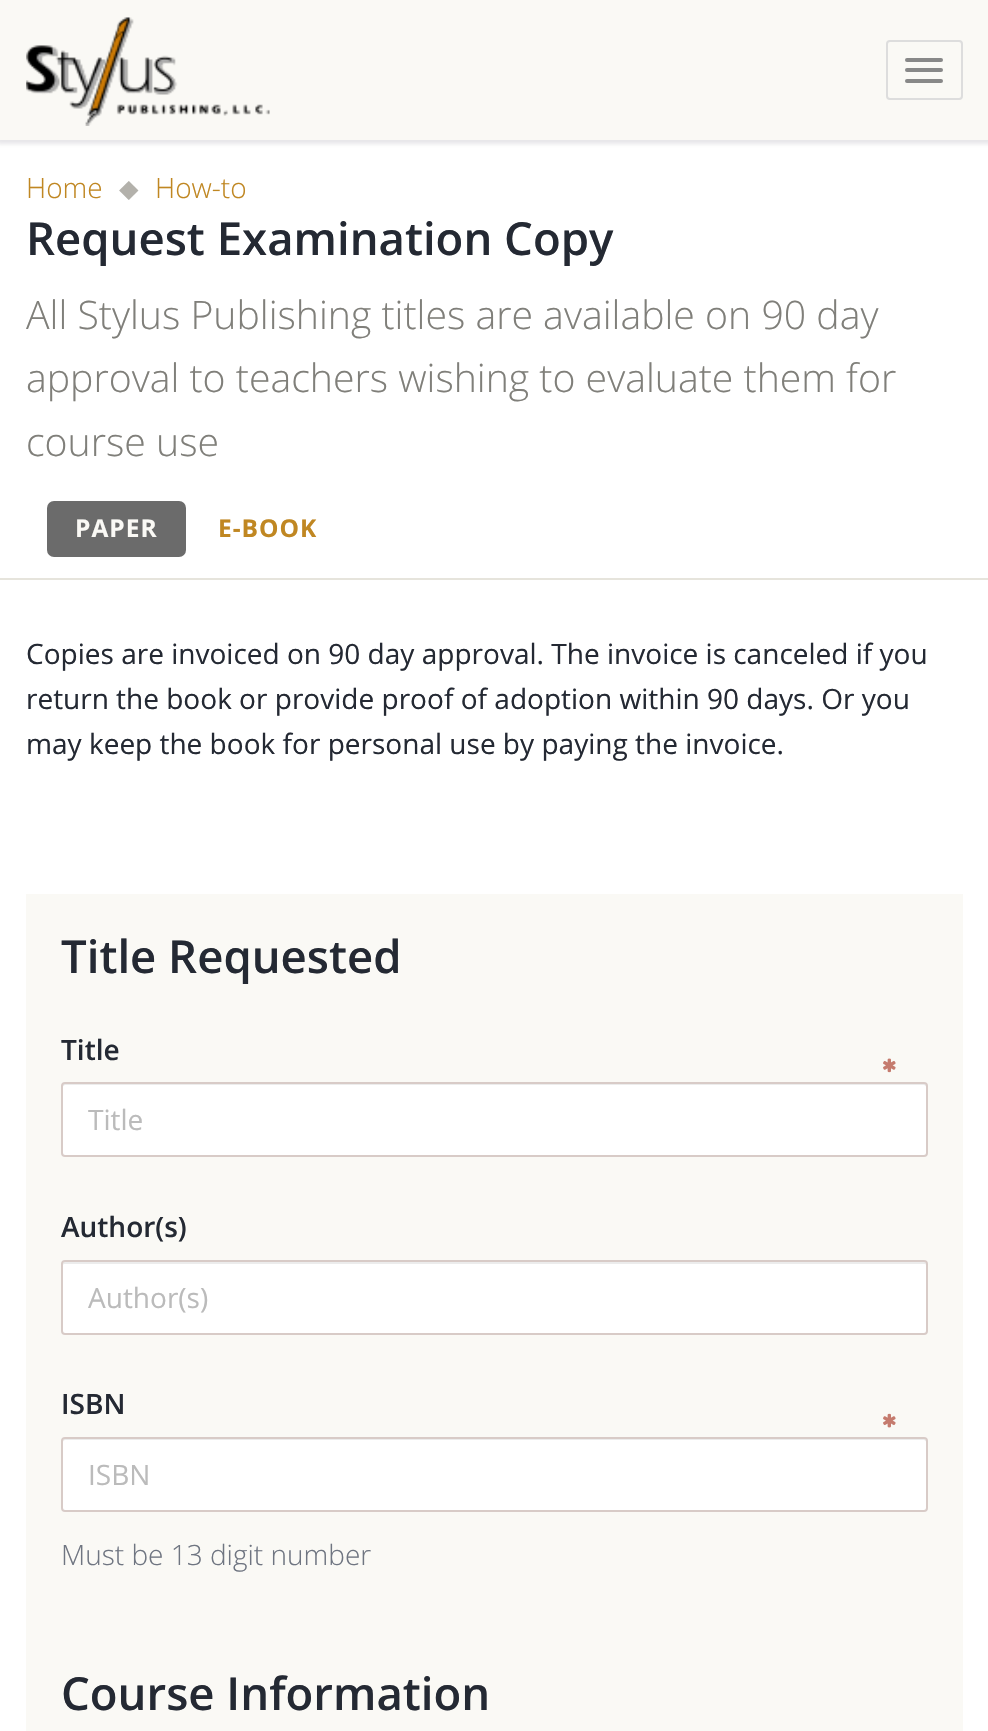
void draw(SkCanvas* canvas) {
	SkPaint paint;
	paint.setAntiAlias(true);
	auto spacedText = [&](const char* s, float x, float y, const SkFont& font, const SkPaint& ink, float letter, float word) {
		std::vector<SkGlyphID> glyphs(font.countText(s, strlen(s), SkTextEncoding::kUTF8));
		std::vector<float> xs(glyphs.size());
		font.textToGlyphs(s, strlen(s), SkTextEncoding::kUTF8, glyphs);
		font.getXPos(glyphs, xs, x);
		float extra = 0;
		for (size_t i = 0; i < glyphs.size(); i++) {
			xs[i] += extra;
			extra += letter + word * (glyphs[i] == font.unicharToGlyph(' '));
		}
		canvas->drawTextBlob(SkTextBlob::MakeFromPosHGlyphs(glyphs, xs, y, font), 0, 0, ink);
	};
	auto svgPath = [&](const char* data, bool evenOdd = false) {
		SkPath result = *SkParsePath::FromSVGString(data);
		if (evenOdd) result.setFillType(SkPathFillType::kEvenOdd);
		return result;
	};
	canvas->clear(0xffffffff);
	paint.setColor(0x1a140a28);
	paint.setMaskFilter(SkMaskFilter::MakeBlur(kNormal_SkBlurStyle, 2));
	canvas->drawRect(SkRect::MakeXYWH(-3, -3, 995, 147), paint);
	paint.setMaskFilter(nullptr);
	paint.setColor(0xfffaf9f5);
	canvas->drawRect(SkRect::MakeXYWH(0, 0, 988, 140), paint);
	canvas->drawImageRect(SkImages::DeferredFromEncodedData(SkData::MakeFromFileName("img1.png")), SkRect::MakeXYWH(26, 17, 244, 109), SkSamplingOptions());
	paint.setStroke(true);
	paint.setStrokeWidth(2);
	paint.setColor(0xffdddddd);
	canvas->drawRoundRect(SkRect::MakeXYWH(887, 41, 75, 58), 3, 3, paint);
	paint.setStroke(false);
	paint.setColor(0xff888888);
	canvas->drawRoundRect(SkRect::MakeXYWH(905, 58, 38, 4), 2, 2, paint);
	canvas->drawRoundRect(SkRect::MakeXYWH(905, 68, 38, 4), 2, 2, paint);
	canvas->drawRoundRect(SkRect::MakeXYWH(905, 79, 38, 4), 2, 2, paint);
	SkFont f1(fontMgr->matchFamilyStyle("Open Sans", SkFontStyle(300, SkFontStyle::kNormal_Width, SkFontStyle::kUpright_Slant)), 28);
	f1.setSubpixel(true);
	paint.setColor(0xffc08722);
	canvas->drawString("Home", 26, 198, f1, paint);
	SkFont f2(fontMgr->matchFamilyStyle("FreeSans", SkFontStyle::Normal()), 28);
	f2.setSubpixel(true);
	paint.setColor(0xffb3b1ab);
	canvas->drawString("⬥", 119, 198, f2, paint);
	paint.setColor(0xffc08722);
	canvas->drawString("How-to", 155, 198, f1, paint);
	SkFont f3(fontMgr->matchFamilyStyle("Open Sans", SkFontStyle(600, SkFontStyle::kNormal_Width, SkFontStyle::kUpright_Slant)), 45.5);
	f3.setSubpixel(true);
	paint.setColor(0xff242933);
	canvas->drawString("Request Examination Copy", 26, 255, f3, paint);
	SkFont f4(fontMgr->matchFamilyStyle("Open Sans", SkFontStyle(300, SkFontStyle::kNormal_Width, SkFontStyle::kUpright_Slant)), 39.2);
	f4.setSubpixel(true);
	paint.setColor(0xff807f7a);
	canvas->drawString("All Stylus Publishing titles are available on 90 day", 26, 329, f4, paint);
	canvas->drawString("approval to teachers wishing to evaluate them for", 26, 392, f4, paint);
	canvas->drawString("course use", 26, 456, f4, paint);
	paint.setColor(0xffe6e4dc);
	canvas->drawRect(SkRect::MakeXYWH(0, 578, 988, 2), paint);
	paint.setColor(0xff6b6b6b);
	canvas->drawRoundRect(SkRect::MakeXYWH(47, 501, 139, 56), 7, 7, paint);
	SkFont f5(fontMgr->matchFamilyStyle("Open Sans", SkFontStyle::Bold()), 24.5);
	f5.setSubpixel(true);
	paint.setColor(0xfffaf9f5);
	spacedText("PAPER", 75, 537, f5, paint, 1, 0);
	paint.setColor(0xffc08722);
	spacedText("E-BOOK", 218, 537, f5, paint, 1, 0);
	SkFont f6(fontMgr->matchFamilyStyle("Open Sans", SkFontStyle::Normal()), 28);
	f6.setSubpixel(true);
	paint.setColor(0xff242933);
	canvas->drawString("Copies are invoiced on 90 day approval. The invoice is canceled if you", 26, 664, f6, paint);
	canvas->drawString("return the book or provide proof of adoption within 90 days. Or you", 26, 709, f6, paint);
	canvas->drawString("may keep the book for personal use by paying the invoice.", 26, 754, f6, paint);
	paint.setColor(0xfffaf9f5);
	canvas->drawRect(SkRect::MakeXYWH(26, 894, 937, 837), paint);
	paint.setColor(0xff242933);
	canvas->drawString("Title Requested", 61, 973, f3, paint);
	SkFont f7(fontMgr->matchFamilyStyle("Open Sans", SkFontStyle(600, SkFontStyle::kNormal_Width, SkFontStyle::kUpright_Slant)), 28);
	f7.setSubpixel(true);
	canvas->drawString("Title", 61, 1060, f7, paint);
	canvas->drawImageRect(SkImages::DeferredFromEncodedData(SkData::MakeFromFileName("img2.png")), SkRect::MakeXYWH(883, 1058, 13, 15), SkSamplingOptions());
	paint.setColor(0xffffffff);
	canvas->drawRoundRect(SkRect::MakeXYWH(61, 1082, 867, 75), 4, 4, paint);
	paint.setColor(0xffececec);
	canvas->drawPath(svgPath("M65 1085H924C925 1085 926 1086 926 1087C926 1086 926 1084 925 1084L924 1083H65L63 1084V1087C63 1086 64 1085 65 1085Z"), paint);
	paint.setStroke(true);
	paint.setColor(0xffd8cbc7);
	canvas->drawRoundRect(SkRect::MakeXYWH(62, 1083, 865, 73), 3, 3, paint);
	paint.setStroke(false);
	paint.setColor(0xffbbbbbb);
	canvas->drawString("Title", 88, 1130, f6, paint);
	paint.setColor(0xff242933);
	canvas->drawString("Author(s)", 61, 1237, f7, paint);
	paint.setColor(0xffffffff);
	canvas->drawRoundRect(SkRect::MakeXYWH(61, 1260, 867, 75), 4, 4, paint);
	paint.setColor(0xffececec);
	canvas->drawPath(svgPath("M65 1264H924C925 1264 926 1264 926 1265C926 1264 926 1262 924 1262H65C63 1262 63 1264 63 1265C63 1264 64 1264 65 1264Z"), paint);
	paint.setStroke(true);
	paint.setColor(0xffd8cbc7);
	canvas->drawRoundRect(SkRect::MakeXYWH(62, 1261, 865, 73), 3, 3, paint);
	paint.setStroke(false);
	paint.setColor(0xffbbbbbb);
	canvas->drawString("Author(s)", 88, 1308, f6, paint);
	paint.setColor(0xff242933);
	canvas->drawString("ISBN", 61, 1414, f7, paint);
	canvas->drawImageRect(SkImages::DeferredFromEncodedData(SkData::MakeFromFileName("img3.png")), SkRect::MakeXYWH(883, 1413, 13, 15), SkSamplingOptions());
	paint.setColor(0xffffffff);
	canvas->drawRoundRect(SkRect::MakeXYWH(61, 1437, 867, 75), 4, 4, paint);
	paint.setColor(0xffececec);
	canvas->drawPath(svgPath("M65 1440H924C925 1440 926 1441 926 1442C926 1441 926 1439 924 1439H65C63 1439 63 1441 63 1442C63 1441 64 1440 65 1440Z"), paint);
	paint.setStroke(true);
	paint.setColor(0xffd8cbc7);
	canvas->drawRoundRect(SkRect::MakeXYWH(62, 1438, 865, 73), 3, 3, paint);
	paint.setStroke(false);
	paint.setColor(0xffbbbbbb);
	canvas->drawString("ISBN", 88, 1485, f6, paint);
	paint.setColor(0xff6f7581);
	canvas->drawString("Must be 13 digit number", 61, 1565, f1, paint);
	paint.setColor(0xff242933);
	canvas->drawString("Course Information", 61, 1710, f3, paint);
}
